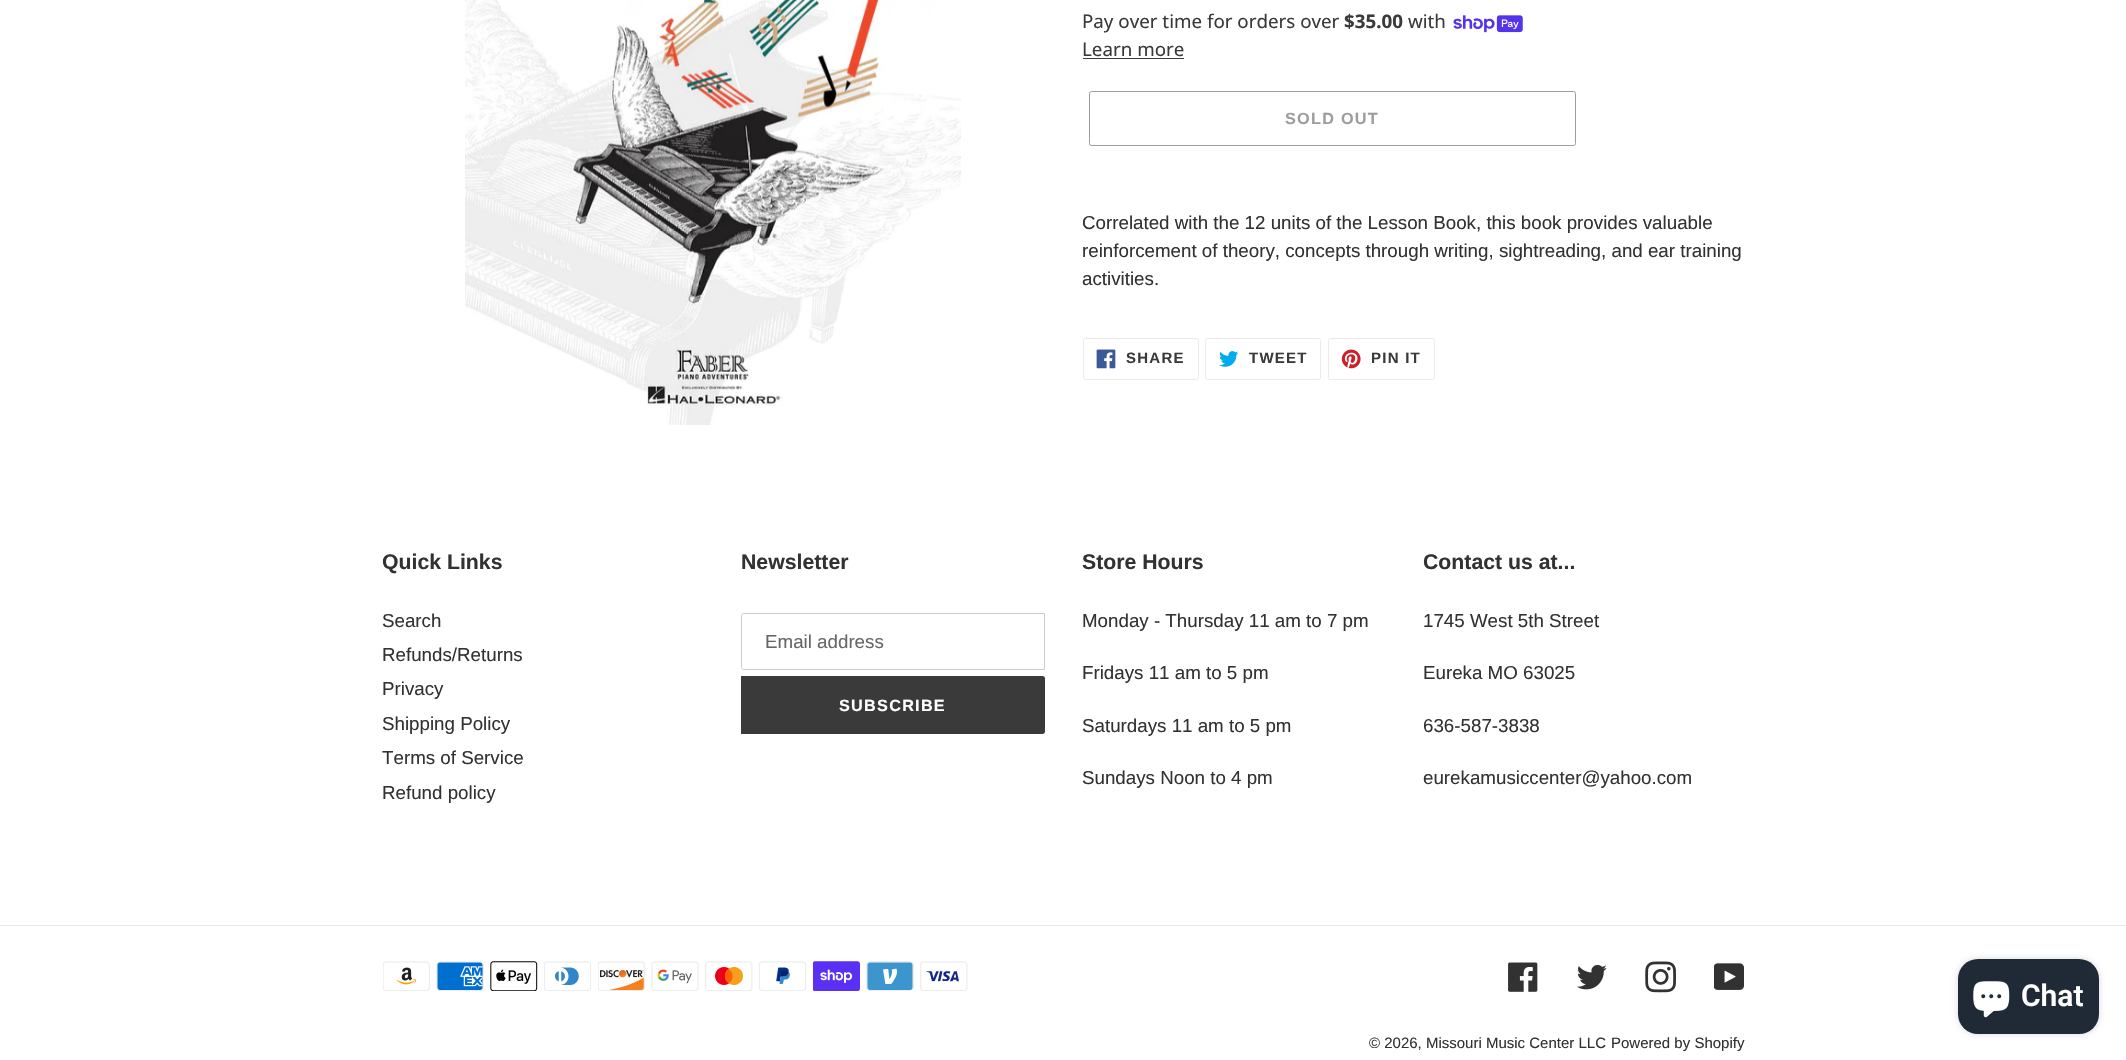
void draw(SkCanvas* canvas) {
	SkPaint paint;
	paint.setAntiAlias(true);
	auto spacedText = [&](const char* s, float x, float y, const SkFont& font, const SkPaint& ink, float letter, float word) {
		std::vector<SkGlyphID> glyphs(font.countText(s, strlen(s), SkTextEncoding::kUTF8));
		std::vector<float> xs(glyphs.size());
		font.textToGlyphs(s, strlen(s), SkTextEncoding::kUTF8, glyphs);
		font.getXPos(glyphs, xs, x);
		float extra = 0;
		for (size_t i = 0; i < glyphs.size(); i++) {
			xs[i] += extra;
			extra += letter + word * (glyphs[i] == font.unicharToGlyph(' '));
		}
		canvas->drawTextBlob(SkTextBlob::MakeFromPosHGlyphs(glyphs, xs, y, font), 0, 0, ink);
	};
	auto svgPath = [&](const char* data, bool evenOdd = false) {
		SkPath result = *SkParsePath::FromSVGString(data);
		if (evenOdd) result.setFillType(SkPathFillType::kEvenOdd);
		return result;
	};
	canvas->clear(0xffffffff);
	canvas->drawImageRect(SkImages::DeferredFromEncodedData(SkData::MakeFromFileName("img1.png")), SkRect::MakeXYWH(465, 0, 496, 425), SkSamplingOptions());
	SkFont f1(fontMgr->matchFamilyStyle("Noto Sans", SkFontStyle::Normal()), 18.75);
	f1.setSubpixel(true);
	paint.setColor(0xff3a3a3a);
	canvas->drawString("Pay over time for orders over", 1082, 28, f1, paint);
	SkFont f2(fontMgr->matchFamilyStyle("Noto Sans", SkFontStyle::Bold()), 18.75);
	f2.setSubpixel(true);
	canvas->drawString("$35.00", 1344, 28, f2, paint);
	canvas->drawString("with", 1408, 28, f1, paint);
	canvas->drawImageRect(SkImages::DeferredFromEncodedData(SkData::MakeFromFileName("img2.png")), SkRect::MakeXYWH(1453, 15, 70, 18), SkSamplingOptions());
	canvas->drawString("Learn more", 1082, 56, f1, paint);
	canvas->drawRect(SkRect::MakeXYWH(1083, 58, 101, 1), paint);
	paint.setStroke(true);
	paint.setStrokeWidth(1);
	paint.setColor(0xff9d9d9d);
	canvas->drawRoundRect(SkRect::MakeXYWH(1089.5, 91.5, 486, 54), 2, 2, paint);
	SkFont f3(fontMgr->matchFamilyStyle("Liberation Sans", SkFontStyle::Bold()), 16.25);
	f3.setSubpixel(true);
	paint.setStroke(false);
	spacedText("SOLD OUT", 1285, 124, f3, paint, 1.25, 0);
	SkFont f4(fontMgr->matchFamilyStyle("Liberation Sans", SkFontStyle::Normal()), 18.75);
	f4.setSubpixel(true);
	paint.setColor(0xff333232);
	canvas->drawString("Correlated with the 12 units of the Lesson Book, this book provides valuable", 1082, 229, f4, paint);
	canvas->drawString("reinforcement of theory, concepts through writing, sightreading, and ear training", 1082, 257, f4, paint);
	canvas->drawString("activities.", 1082, 285, f4, paint);
	paint.setStroke(true);
	paint.setColor(0xffebebeb);
	canvas->drawRoundRect(SkRect::MakeXYWH(1083.5, 338.5, 115, 41), 2, 2, paint);
	canvas->drawImageRect(SkImages::DeferredFromEncodedData(SkData::MakeFromFileName("img3.png")), SkRect::MakeXYWH(1096, 349, 20, 20), SkSamplingOptions());
	SkFont f5(fontMgr->matchFamilyStyle("Liberation Sans", SkFontStyle::Bold()), 15);
	f5.setSubpixel(true);
	paint.setStroke(false);
	paint.setColor(0xff3a3a3a);
	spacedText("SHARE", 1126, 363, f5, paint, 1.25, 0);
	paint.setStroke(true);
	paint.setColor(0xffebebeb);
	canvas->drawRoundRect(SkRect::MakeXYWH(1205.5, 338.5, 115, 41), 2, 2, paint);
	canvas->drawImageRect(SkImages::DeferredFromEncodedData(SkData::MakeFromFileName("img4.png")), SkRect::MakeXYWH(1219, 351, 20, 16), SkSamplingOptions());
	paint.setStroke(false);
	paint.setColor(0xff3a3a3a);
	spacedText("TWEET", 1249, 363, f5, paint, 1.25, 0);
	paint.setStroke(true);
	paint.setColor(0xffebebeb);
	canvas->drawRoundRect(SkRect::MakeXYWH(1328.5, 338.5, 106, 41), 2, 2, paint);
	canvas->drawImageRect(SkImages::DeferredFromEncodedData(SkData::MakeFromFileName("img5.png")), SkRect::MakeXYWH(1341, 349, 20, 20), SkSamplingOptions());
	paint.setStroke(false);
	paint.setColor(0xff3a3a3a);
	spacedText("PIN IT", 1371, 363, f5, paint, 1.25, 0);
	SkFont f6(fontMgr->matchFamilyStyle("Liberation Sans", SkFontStyle::Bold()), 21.25);
	f6.setSubpixel(true);
	paint.setColor(0xff333232);
	canvas->drawString("Quick Links", 382, 569, f6, paint);
	canvas->drawString("Search", 382, 627, f4, paint);
	canvas->drawString("Refunds/Returns", 382, 661, f4, paint);
	canvas->drawString("Privacy", 382, 695, f4, paint);
	canvas->drawString("Shipping Policy", 382, 730, f4, paint);
	canvas->drawString("Terms of Service", 382, 764, f4, paint);
	canvas->drawString("Refund policy", 382, 799, f4, paint);
	canvas->drawString("Newsletter", 741, 569, f6, paint);
	paint.setStroke(true);
	paint.setColor(0xffcccccc);
	canvas->drawPath(svgPath("M743.5 613.5H1044.5V669.5H743.5C742.5 669.5 741.5 668.5 741.5 667.5V615.5C741.5 614.5 742.5 613.5 743.5 613.5Z"), paint);
	paint.setStroke(false);
	paint.setColor(0xff666666);
	canvas->drawString("Email address", 765, 648, f4, paint);
	paint.setColor(0xff3a3a3a);
	canvas->drawPath(svgPath("M741 676H1042.5C1044 676 1045 677 1045 678.5V731.5C1045 733 1044 734 1042.5 734H741Z"), paint);
	paint.setColor(0xffffffff);
	spacedText("SUBSCRIBE", 839, 711, f3, paint, 1.25, 0);
	paint.setColor(0xff333232);
	canvas->drawString("Store Hours", 1082, 569, f6, paint);
	canvas->drawString("Monday - Thursday 11 am to 7 pm", 1082, 627, f4, paint);
	canvas->drawString("Fridays 11 am to 5 pm", 1082, 679, f4, paint);
	canvas->drawString("Saturdays 11 am to 5 pm", 1082, 732, f4, paint);
	canvas->drawString("Sundays Noon to 4 pm", 1082, 784, f4, paint);
	canvas->drawString("Contact us at...", 1423, 569, f6, paint);
	canvas->drawString("1745 West 5th Street", 1423, 627, f4, paint);
	canvas->drawString("Eureka MO 63025", 1423, 679, f4, paint);
	canvas->drawString("636-587-3838", 1423, 732, f4, paint);
	canvas->drawString("eurekamusiccenter@yahoo.com", 1423, 784, f4, paint);
	paint.setColor(0xffe6e6e6);
	canvas->drawRect(SkRect::MakeXYWH(0, 925, 2126, 1), paint);
	canvas->drawImageRect(SkImages::DeferredFromEncodedData(SkData::MakeFromFileName("img6.png")), SkRect::MakeXYWH(383, 961, 47, 30), SkSamplingOptions());
	canvas->drawImageRect(SkImages::DeferredFromEncodedData(SkData::MakeFromFileName("img7.png")), SkRect::MakeXYWH(436, 961, 48, 30), SkSamplingOptions());
	canvas->drawImageRect(SkImages::DeferredFromEncodedData(SkData::MakeFromFileName("img8.png")), SkRect::MakeXYWH(490, 961, 48, 30), SkSamplingOptions());
	canvas->drawImageRect(SkImages::DeferredFromEncodedData(SkData::MakeFromFileName("img9.png")), SkRect::MakeXYWH(544, 961, 47, 30), SkSamplingOptions());
	canvas->drawImageRect(SkImages::DeferredFromEncodedData(SkData::MakeFromFileName("img10.png")), SkRect::MakeXYWH(598, 961, 47, 30), SkSamplingOptions());
	canvas->drawImageRect(SkImages::DeferredFromEncodedData(SkData::MakeFromFileName("img11.png")), SkRect::MakeXYWH(651, 961, 48, 30), SkSamplingOptions());
	canvas->drawImageRect(SkImages::DeferredFromEncodedData(SkData::MakeFromFileName("img12.png")), SkRect::MakeXYWH(705, 961, 48, 30), SkSamplingOptions());
	canvas->drawImageRect(SkImages::DeferredFromEncodedData(SkData::MakeFromFileName("img13.png")), SkRect::MakeXYWH(759, 961, 47, 30), SkSamplingOptions());
	canvas->drawImageRect(SkImages::DeferredFromEncodedData(SkData::MakeFromFileName("img14.png")), SkRect::MakeXYWH(813, 961, 47, 30), SkSamplingOptions());
	canvas->drawImageRect(SkImages::DeferredFromEncodedData(SkData::MakeFromFileName("img15.png")), SkRect::MakeXYWH(866, 961, 48, 30), SkSamplingOptions());
	canvas->drawImageRect(SkImages::DeferredFromEncodedData(SkData::MakeFromFileName("img16.png")), SkRect::MakeXYWH(920, 961, 48, 30), SkSamplingOptions());
	canvas->drawImageRect(SkImages::DeferredFromEncodedData(SkData::MakeFromFileName("img17.png")), SkRect::MakeXYWH(1508, 962, 30, 30), SkSamplingOptions());
	canvas->drawImageRect(SkImages::DeferredFromEncodedData(SkData::MakeFromFileName("img18.png")), SkRect::MakeXYWH(1577, 964, 30, 26), SkSamplingOptions());
	canvas->drawImageRect(SkImages::DeferredFromEncodedData(SkData::MakeFromFileName("img19.png")), SkRect::MakeXYWH(1645, 961, 31, 32), SkSamplingOptions());
	canvas->drawImageRect(SkImages::DeferredFromEncodedData(SkData::MakeFromFileName("img20.png")), SkRect::MakeXYWH(1714, 963, 30, 27), SkSamplingOptions());
	SkFont f7(fontMgr->matchFamilyStyle("Liberation Sans", SkFontStyle::Normal()), 15);
	f7.setSubpixel(true);
	paint.setColor(0xff333232);
	canvas->drawString("© 2026, Missouri Music Center LLC", 1369, 1048, f7, paint);
	canvas->drawString("Powered by Shopify", 1611, 1048, f7, paint);
	paint.setColor(0x26000000);
	paint.setMaskFilter(SkMaskFilter::MakeBlur(kNormal_SkBlurStyle, 3));
	canvas->drawRoundRect(SkRect::MakeXYWH(1958, 959, 141, 75), 20, 20, paint);
	paint.setMaskFilter(nullptr);
	paint.setColor(0xff202a36);
	canvas->drawRoundRect(SkRect::MakeXYWH(1958, 959, 141, 75), 20, 20, paint);
	canvas->drawImageRect(SkImages::DeferredFromEncodedData(SkData::MakeFromFileName("img21.png")), SkRect::MakeXYWH(1973, 981, 37, 37), SkSamplingOptions());
	SkFont f8(fontMgr->matchFamilyStyle("Roboto", SkFontStyle(600, SkFontStyle::kNormal_Width, SkFontStyle::kUpright_Slant)), 30);
	f8.setSubpixel(true);
	paint.setColor(0xffffffff);
	canvas->drawString("Chat", 2021, 1006, f8, paint);
}
